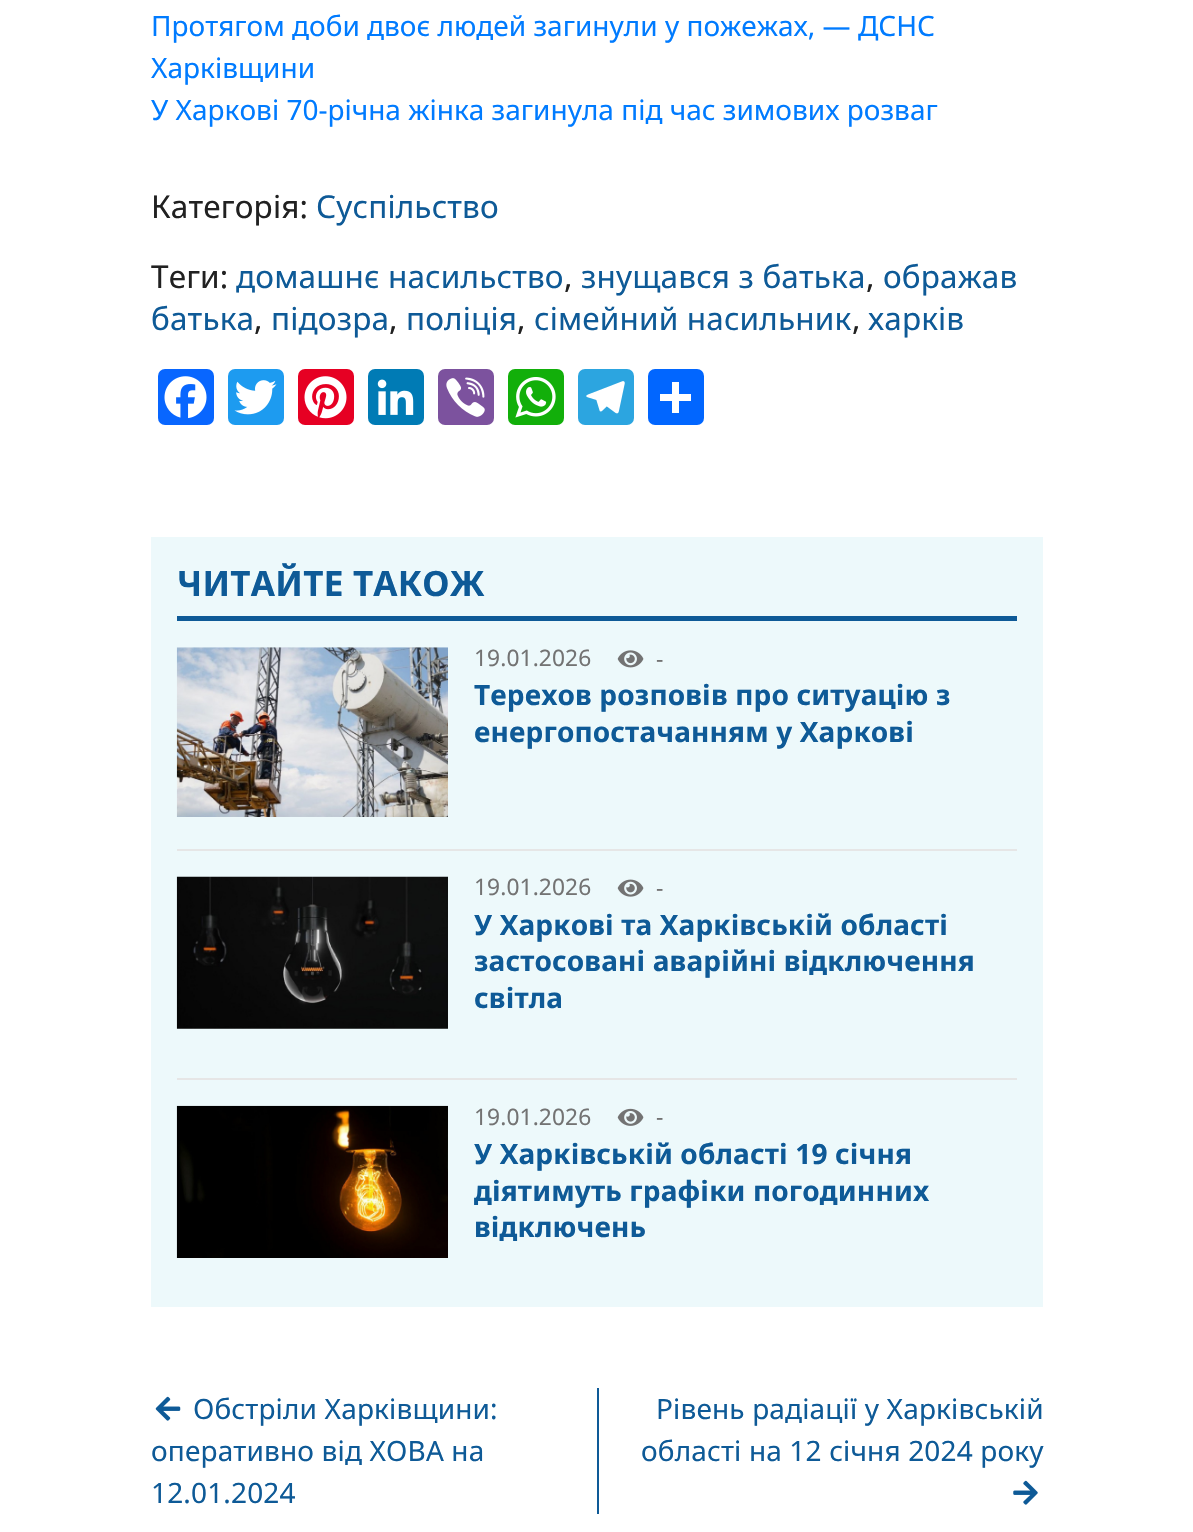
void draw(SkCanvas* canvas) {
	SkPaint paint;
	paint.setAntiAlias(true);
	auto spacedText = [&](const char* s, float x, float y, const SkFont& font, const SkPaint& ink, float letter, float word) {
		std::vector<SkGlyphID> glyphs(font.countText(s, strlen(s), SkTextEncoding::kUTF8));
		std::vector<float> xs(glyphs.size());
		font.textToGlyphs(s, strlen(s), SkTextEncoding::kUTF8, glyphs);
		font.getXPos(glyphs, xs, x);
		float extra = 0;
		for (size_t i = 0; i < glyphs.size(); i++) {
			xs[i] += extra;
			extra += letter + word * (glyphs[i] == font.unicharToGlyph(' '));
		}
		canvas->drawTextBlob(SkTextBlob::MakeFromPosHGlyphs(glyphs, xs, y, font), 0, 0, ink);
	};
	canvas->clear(0xffffffff);
	SkFont f1(fontMgr->matchFamilyStyle("Noto Sans", SkFontStyle::Normal()), 28);
	f1.setSubpixel(true);
	paint.setColor(0xff007bff);
	canvas->drawString("Протягом доби двоє людей загинули у пожежах, — ДСНС", 151, 36, f1, paint);
	canvas->drawString("Харківщини", 151, 78, f1, paint);
	canvas->drawString("У Харкові 70-річна жінка загинула під час зимових розваг", 151, 120, f1, paint);
	SkFont f2(fontMgr->matchFamilyStyle("Noto Sans", SkFontStyle::Normal()), 31.5);
	f2.setSubpixel(true);
	paint.setColor(0xff212121);
	spacedText("Категорія:", 151, 218, f2, paint, 0.15, 0);
	paint.setColor(0xff0e5a97);
	spacedText("Суспільство", 316, 218, f2, paint, 0.15, 0);
	paint.setColor(0xff212121);
	spacedText("Теги:", 151, 288, f2, paint, 0.15, 0);
	paint.setColor(0xff0e5a97);
	spacedText("домашнє насильство", 236, 288, f2, paint, 0.15, 0);
	paint.setColor(0xff212121);
	spacedText(",", 564, 288, f2, paint, 0.15, 0);
	paint.setColor(0xff0e5a97);
	spacedText("знущався з батька", 581, 288, f2, paint, 0.15, 0);
	paint.setColor(0xff212121);
	spacedText(",", 866, 288, f2, paint, 0.15, 0);
	paint.setColor(0xff0e5a97);
	spacedText("ображав", 883, 288, f2, paint, 0.15, 0);
	spacedText("батька", 151, 330, f2, paint, 0.15, 0);
	paint.setColor(0xff212121);
	spacedText(",", 254, 330, f2, paint, 0.15, 0);
	paint.setColor(0xff0e5a97);
	spacedText("підозра", 271, 330, f2, paint, 0.15, 0);
	paint.setColor(0xff212121);
	spacedText(",", 389, 330, f2, paint, 0.15, 0);
	paint.setColor(0xff0e5a97);
	spacedText("поліція", 406, 330, f2, paint, 0.15, 0);
	paint.setColor(0xff212121);
	spacedText(",", 517, 330, f2, paint, 0.15, 0);
	paint.setColor(0xff0e5a97);
	spacedText("сімейний насильник", 534, 330, f2, paint, 0.15, 0);
	paint.setColor(0xff212121);
	spacedText(",", 852, 330, f2, paint, 0.15, 0);
	paint.setColor(0xff0e5a97);
	spacedText("харків", 868, 330, f2, paint, 0.15, 0);
	paint.setColor(0xff0866ff);
	canvas->drawRoundRect(SkRect::MakeXYWH(158, 369, 56, 56), 7, 7, paint);
	canvas->drawImageRect(SkImages::DeferredFromEncodedData(SkData::MakeFromFileName("img1.png")), SkRect::MakeXYWH(164, 376, 43, 43), SkSamplingOptions());
	paint.setColor(0xff1d9bf0);
	canvas->drawRoundRect(SkRect::MakeXYWH(228, 369, 56, 56), 7, 7, paint);
	canvas->drawImageRect(SkImages::DeferredFromEncodedData(SkData::MakeFromFileName("img2.png")), SkRect::MakeXYWH(234, 380, 43, 35), SkSamplingOptions());
	paint.setColor(0xffe60023);
	canvas->drawRoundRect(SkRect::MakeXYWH(298, 369, 56, 56), 7, 7, paint);
	canvas->drawImageRect(SkImages::DeferredFromEncodedData(SkData::MakeFromFileName("img3.png")), SkRect::MakeXYWH(304, 376, 43, 43), SkSamplingOptions());
	paint.setColor(0xff007bb5);
	canvas->drawRoundRect(SkRect::MakeXYWH(368, 369, 56, 56), 7, 7, paint);
	canvas->drawImageRect(SkImages::DeferredFromEncodedData(SkData::MakeFromFileName("img4.png")), SkRect::MakeXYWH(377, 379, 37, 36), SkSamplingOptions());
	paint.setColor(0xff7c529e);
	canvas->drawRoundRect(SkRect::MakeXYWH(438, 369, 56, 56), 7, 7, paint);
	canvas->drawImageRect(SkImages::DeferredFromEncodedData(SkData::MakeFromFileName("img5.png")), SkRect::MakeXYWH(446, 377, 39, 40), SkSamplingOptions());
	paint.setColor(0xff12af0a);
	canvas->drawRoundRect(SkRect::MakeXYWH(508, 369, 56, 56), 7, 7, paint);
	canvas->drawImageRect(SkImages::DeferredFromEncodedData(SkData::MakeFromFileName("img6.png")), SkRect::MakeXYWH(515, 377, 41, 41), SkSamplingOptions());
	paint.setColor(0xff2ca5e0);
	canvas->drawRoundRect(SkRect::MakeXYWH(578, 369, 56, 56), 7, 7, paint);
	canvas->drawImageRect(SkImages::DeferredFromEncodedData(SkData::MakeFromFileName("img7.png")), SkRect::MakeXYWH(586, 381, 39, 33), SkSamplingOptions());
	paint.setColor(0xff0166ff);
	canvas->drawRoundRect(SkRect::MakeXYWH(648, 369, 56, 56), 7, 7, paint);
	paint.setColor(0xffffffff);
	canvas->drawRect(SkRect::MakeXYWH(672, 382, 7, 31), paint);
	canvas->drawRect(SkRect::MakeXYWH(660, 394, 31, 7), paint);
	paint.setColor(0xffedf9fb);
	canvas->drawRect(SkRect::MakeXYWH(151, 537, 892, 770), paint);
	paint.setColor(0xff0e5a97);
	canvas->drawRect(SkRect::MakeXYWH(177, 616, 840, 5), paint);
	SkFont f3(fontMgr->matchFamilyStyle("Noto Sans", SkFontStyle::Bold()), 35);
	f3.setSubpixel(true);
	spacedText("ЧИТАЙТЕ ТАКОЖ", 177, 596, f3, paint, 0.25, 0);
	paint.setColor(0xffe6e6e6);
	canvas->drawRect(SkRect::MakeXYWH(177, 849, 840, 2), paint);
	canvas->drawImageRect(SkImages::DeferredFromEncodedData(SkData::MakeFromFileName("img8.png")), SkRect::MakeXYWH(176, 647, 272, 170), SkSamplingOptions());
	SkFont f4(fontMgr->matchFamilyStyle("Noto Sans", SkFontStyle::Normal()), 22.75);
	f4.setSubpixel(true);
	paint.setColor(0xff737373);
	spacedText("19.01.2026", 474, 666, f4, paint, 0.1, 0);
	canvas->drawImageRect(SkImages::DeferredFromEncodedData(SkData::MakeFromFileName("img9.png")), SkRect::MakeXYWH(617, 650, 27, 18), SkSamplingOptions());
	spacedText("-", 656, 667, f4, paint, 0.1, 0);
	SkFont f5(fontMgr->matchFamilyStyle("Noto Sans", SkFontStyle::Bold()), 28);
	f5.setSubpixel(true);
	paint.setColor(0xff0e5a97);
	spacedText("Терехов розповів про ситуацію з", 474, 705, f5, paint, 0.15, 0);
	spacedText("енергопостачанням у Харкові", 474, 742, f5, paint, 0.15, 0);
	paint.setColor(0xffe6e6e6);
	canvas->drawRect(SkRect::MakeXYWH(177, 1078, 840, 2), paint);
	canvas->drawImageRect(SkImages::DeferredFromEncodedData(SkData::MakeFromFileName("img10.png")), SkRect::MakeXYWH(176, 876, 272, 153), SkSamplingOptions());
	paint.setColor(0xff737373);
	spacedText("19.01.2026", 474, 895, f4, paint, 0.1, 0);
	canvas->drawImageRect(SkImages::DeferredFromEncodedData(SkData::MakeFromFileName("img11.png")), SkRect::MakeXYWH(617, 879, 27, 18), SkSamplingOptions());
	spacedText("-", 656, 896, f4, paint, 0.1, 0);
	paint.setColor(0xff0e5a97);
	spacedText("У Харкові та Харківській області", 474, 935, f5, paint, 0.15, 0);
	spacedText("застосовані аварійні відключення", 474, 971, f5, paint, 0.15, 0);
	spacedText("світла", 474, 1008, f5, paint, 0.15, 0);
	canvas->drawImageRect(SkImages::DeferredFromEncodedData(SkData::MakeFromFileName("img12.png")), SkRect::MakeXYWH(176, 1105, 272, 153), SkSamplingOptions());
	paint.setColor(0xff737373);
	spacedText("19.01.2026", 474, 1125, f4, paint, 0.1, 0);
	canvas->drawImageRect(SkImages::DeferredFromEncodedData(SkData::MakeFromFileName("img13.png")), SkRect::MakeXYWH(617, 1108, 27, 18), SkSamplingOptions());
	spacedText("-", 656, 1125, f4, paint, 0.1, 0);
	paint.setColor(0xff0e5a97);
	spacedText("У Харківській області 19 січня", 474, 1164, f5, paint, 0.15, 0);
	spacedText("діятимуть графіки погодинних", 474, 1201, f5, paint, 0.15, 0);
	spacedText("відключень", 474, 1237, f5, paint, 0.15, 0);
	canvas->drawImageRect(SkImages::DeferredFromEncodedData(SkData::MakeFromFileName("img14.png")), SkRect::MakeXYWH(155, 1396, 26, 25), SkSamplingOptions());
	spacedText("Обстріли Харківщини:", 193, 1419, f1, paint, 0.15, 0);
	spacedText("оперативно від ХОВА на", 151, 1461, f1, paint, 0.15, 0);
	spacedText("12.01.2024", 151, 1503, f1, paint, 0.15, 0);
	canvas->drawRect(SkRect::MakeXYWH(597, 1388, 2, 126), paint);
	spacedText("Рівень радіації у Харківській", 656, 1419, f1, paint, 0.15, 0);
	spacedText("області на 12 січня 2024 року", 641, 1461, f1, paint, 0.15, 0);
	canvas->drawImageRect(SkImages::DeferredFromEncodedData(SkData::MakeFromFileName("img15.png")), SkRect::MakeXYWH(1013, 1480, 25, 25), SkSamplingOptions());
}
